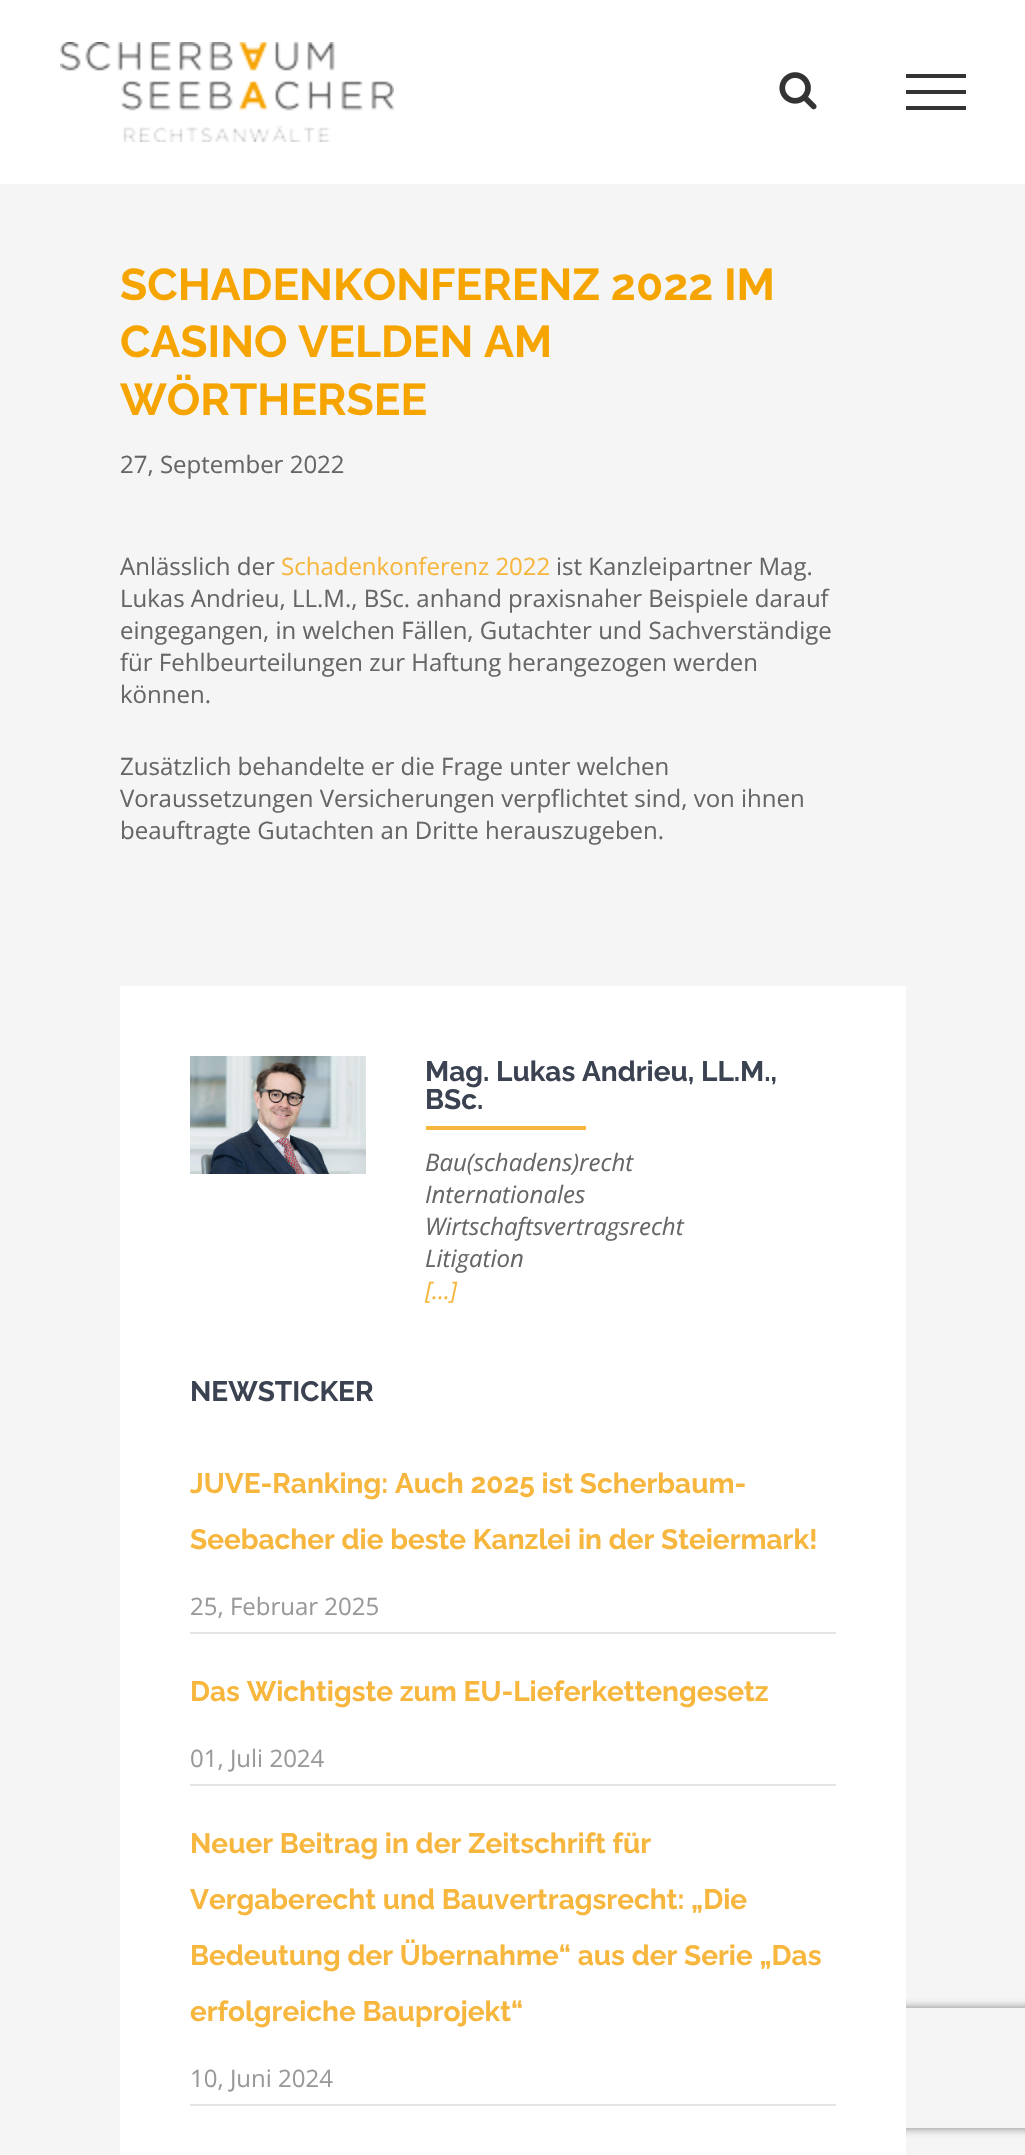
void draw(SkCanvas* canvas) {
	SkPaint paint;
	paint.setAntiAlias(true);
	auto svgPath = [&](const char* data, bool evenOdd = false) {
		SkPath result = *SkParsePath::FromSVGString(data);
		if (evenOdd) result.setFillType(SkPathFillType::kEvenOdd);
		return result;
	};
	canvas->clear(0xfff5f5f5);
	paint.setColor(0xffffffff);
	canvas->drawRect(SkRect::MakeXYWH(0, 0, 1025, 184), paint);
	canvas->drawImageRect(SkImages::DeferredFromEncodedData(SkData::MakeFromFileName("img1.png")), SkRect::MakeXYWH(60, 42, 334, 100), SkSamplingOptions());
	canvas->drawImageRect(SkImages::DeferredFromEncodedData(SkData::MakeFromFileName("img2.png")), SkRect::MakeXYWH(779, 72, 38, 38), SkSamplingOptions());
	paint.setColor(0xff333333);
	canvas->drawRect(SkRect::MakeXYWH(906, 74, 60, 4), paint);
	canvas->drawRect(SkRect::MakeXYWH(906, 90, 60, 4), paint);
	canvas->drawRect(SkRect::MakeXYWH(906, 106, 60, 4), paint);
	SkFont f1(fontMgr->matchFamilyStyle("Raleway", SkFontStyle(100, SkFontStyle::kNormal_Width, SkFontStyle::kUpright_Slant)), 44.4);
	f1.setSubpixel(true);
	paint.setColor(0xfff6a500);
	canvas->drawString("SCHADENKONFERENZ 2022 IM", 120, 300, f1, paint);
	canvas->drawString("CASINO VELDEN AM", 120, 357, f1, paint);
	canvas->drawString("WÖRTHERSEE", 120, 415, f1, paint);
	SkFont f2(fontMgr->matchFamilyStyle("Open Sans", SkFontStyle::Normal()), 24);
	f2.setSubpixel(true);
	paint.setColor(0xff666666);
	canvas->drawString("27, September 2022", 120, 473, f2, paint);
	canvas->drawString("Anlässlich der", 120, 575, f2, paint);
	paint.setColor(0xfff7b63d);
	canvas->drawString("Schadenkonferenz 2022", 281, 575, f2, paint);
	paint.setColor(0xff666666);
	canvas->drawString("ist Kanzleipartner Mag.", 556, 575, f2, paint);
	canvas->drawString("Lukas Andrieu, LL.M., BSc. anhand praxisnaher Beispiele darauf", 120, 607, f2, paint);
	canvas->drawString("eingegangen, in welchen Fällen, Gutachter und Sachverständige", 120, 639, f2, paint);
	canvas->drawString("für Fehlbeurteilungen zur Haftung herangezogen werden", 120, 671, f2, paint);
	canvas->drawString("können.", 120, 703, f2, paint);
	canvas->drawString("Zusätzlich behandelte er die Frage unter welchen", 120, 775, f2, paint);
	canvas->drawString("Voraussetzungen Versicherungen verpflichtet sind, von ihnen", 120, 807, f2, paint);
	canvas->drawString("beauftragte Gutachten an Dritte herauszugeben.", 120, 839, f2, paint);
	canvas->save();
	canvas->clipPath(svgPath("M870 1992H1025V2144H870ZM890 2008H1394C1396 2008 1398 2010 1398 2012V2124C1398 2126 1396 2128 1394 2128H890C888 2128 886 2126 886 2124V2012C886 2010 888 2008 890 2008Z", true), true);
	paint.setColor(0xff808080);
	paint.setMaskFilter(SkMaskFilter::MakeBlur(kNormal_SkBlurStyle, 5));
	canvas->drawRoundRect(SkRect::MakeXYWH(886, 2008, 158, 120), 4, 4, paint);
	paint.setMaskFilter(nullptr);
	canvas->restore();
	paint.setColor(0xffffffff);
	canvas->drawRect(SkRect::MakeXYWH(120, 986, 786, 1169), paint);
	canvas->drawImageRect(SkImages::DeferredFromEncodedData(SkData::MakeFromFileName("img3.png")), SkRect::MakeXYWH(190, 1056, 176, 118), SkSamplingOptions());
	SkFont f3(fontMgr->matchFamilyStyle("Raleway", SkFontStyle(100, SkFontStyle::kNormal_Width, SkFontStyle::kUpright_Slant)), 28);
	f3.setSubpixel(true);
	paint.setColor(0xff3b4251);
	canvas->drawString("Mag. Lukas Andrieu, LL.M.,", 425, 1081, f3, paint);
	canvas->drawString("BSc.", 425, 1109, f3, paint);
	paint.setColor(0xfff7b63d);
	canvas->drawRect(SkRect::MakeXYWH(426, 1126, 160, 4), paint);
	SkFont f4(fontMgr->matchFamilyStyle("Open Sans", SkFontStyle::Italic()), 24);
	f4.setSubpixel(true);
	paint.setColor(0xff666666);
	canvas->drawString("Bau(schadens)recht", 425, 1171, f4, paint);
	canvas->drawString("Internationales", 425, 1203, f4, paint);
	canvas->drawString("Wirtschaftsvertragsrecht", 425, 1235, f4, paint);
	canvas->drawString("Litigation", 425, 1267, f4, paint);
	paint.setColor(0xfff7b63d);
	canvas->drawString("[...]", 425, 1299, f4, paint);
	paint.setColor(0xff3b4251);
	canvas->drawString("NEWSTICKER", 190, 1401, f3, paint);
	paint.setColor(0xffe5e4e3);
	canvas->drawRect(SkRect::MakeXYWH(190, 1632, 646, 2), paint);
	paint.setColor(0xfff7b63d);
	canvas->drawString("JUVE-Ranking: Auch 2025 ist Scherbaum-", 190, 1493, f3, paint);
	canvas->drawString("Seebacher die beste Kanzlei in der Steiermark!", 190, 1549, f3, paint);
	paint.setColor(0xff999999);
	canvas->drawString("25, Februar 2025", 190, 1615, f2, paint);
	paint.setColor(0xffe5e4e3);
	canvas->drawRect(SkRect::MakeXYWH(190, 1784, 646, 2), paint);
	paint.setColor(0xfff7b63d);
	canvas->drawString("Das Wichtigste zum EU-Lieferkettengesetz", 190, 1701, f3, paint);
	paint.setColor(0xff999999);
	canvas->drawString("01, Juli 2024", 190, 1767, f2, paint);
	paint.setColor(0xffe5e4e3);
	canvas->drawRect(SkRect::MakeXYWH(190, 2104, 646, 2), paint);
	paint.setColor(0xfff7b63d);
	canvas->drawString("Neuer Beitrag in der Zeitschrift für", 190, 1853, f3, paint);
	canvas->drawString("Vergaberecht und Bauvertragsrecht: „Die", 190, 1909, f3, paint);
	canvas->drawString("Bedeutung der Übernahme“ aus der Serie „Das", 190, 1965, f3, paint);
	canvas->drawString("erfolgreiche Bauprojekt“", 190, 2021, f3, paint);
	paint.setColor(0xff999999);
	canvas->drawString("10, Juni 2024", 190, 2087, f2, paint);
}
